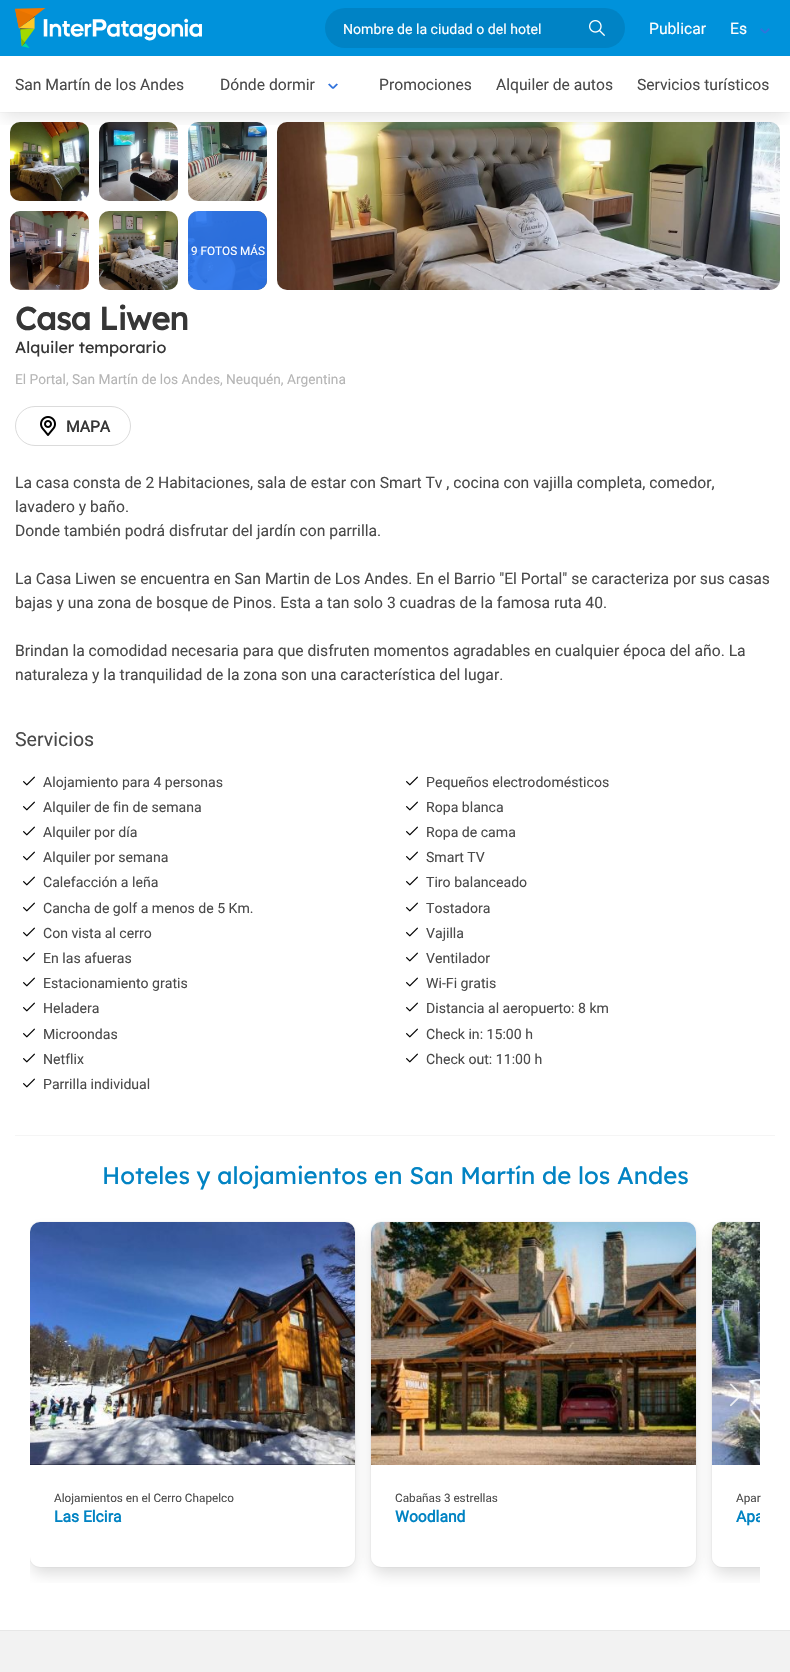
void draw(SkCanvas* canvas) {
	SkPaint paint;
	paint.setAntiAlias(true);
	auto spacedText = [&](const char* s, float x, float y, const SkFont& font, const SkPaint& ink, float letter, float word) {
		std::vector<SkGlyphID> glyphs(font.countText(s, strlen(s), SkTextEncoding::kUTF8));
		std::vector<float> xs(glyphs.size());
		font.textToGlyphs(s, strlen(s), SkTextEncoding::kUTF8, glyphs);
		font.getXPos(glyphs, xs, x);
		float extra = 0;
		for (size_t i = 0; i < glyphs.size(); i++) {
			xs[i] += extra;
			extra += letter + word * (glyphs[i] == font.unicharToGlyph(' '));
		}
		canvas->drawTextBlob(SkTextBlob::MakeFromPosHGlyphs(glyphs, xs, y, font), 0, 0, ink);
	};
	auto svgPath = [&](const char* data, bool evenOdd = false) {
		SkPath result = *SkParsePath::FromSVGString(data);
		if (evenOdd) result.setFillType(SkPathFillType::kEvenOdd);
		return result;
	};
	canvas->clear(0xffffffff);
	paint.setStroke(true);
	paint.setStrokeWidth(1);
	paint.setColor(0xfffafafa);
	canvas->drawRect(SkRect::MakeXYWH(-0.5, 55.5, 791, 57), paint);
	canvas->drawImageRect(SkImages::DeferredFromEncodedData(SkData::MakeFromFileName("img3.png")), SkRect::MakeXYWH(10, 122, 79, 79), SkSamplingOptions());
	canvas->drawImageRect(SkImages::DeferredFromEncodedData(SkData::MakeFromFileName("img4.png")), SkRect::MakeXYWH(99, 122, 79, 79), SkSamplingOptions());
	canvas->drawImageRect(SkImages::DeferredFromEncodedData(SkData::MakeFromFileName("img5.png")), SkRect::MakeXYWH(188, 122, 79, 79), SkSamplingOptions());
	canvas->drawImageRect(SkImages::DeferredFromEncodedData(SkData::MakeFromFileName("img6.png")), SkRect::MakeXYWH(277, 122, 503, 168), SkSamplingOptions());
	canvas->save();
	canvas->clipRect(SkRect::MakeXYWH(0, 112, 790, 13));
	paint.setStroke(false);
	paint.setColor(0x1a0a0a0a);
	paint.setMaskFilter(SkMaskFilter::MakeBlur(kNormal_SkBlurStyle, 8));
	canvas->drawRect(SkRect::MakeXYWH(2, 66, 786, 52), paint);
	paint.setMaskFilter(nullptr);
	canvas->restore();
	paint.setColor(0xff0092db);
	canvas->drawRect(SkRect::MakeXYWH(0, 0, 790, 56), paint);
	canvas->drawImageRect(SkImages::DeferredFromEncodedData(SkData::MakeFromFileName("img1.png")), SkRect::MakeXYWH(15, 8, 187, 40), SkSamplingOptions());
	paint.setColor(0xff0083c5);
	canvas->drawRoundRect(SkRect::MakeXYWH(325, 8, 300, 40), 20, 20, paint);
	SkFont f1(fontMgr->matchFamilyStyle("Roboto", SkFontStyle::Normal()), 14.4);
	f1.setSubpixel(true);
	paint.setColor(0xffffffff);
	canvas->drawString("Nombre de la ciudad o del hotel", 343, 34, f1, paint);
	canvas->drawImageRect(SkImages::DeferredFromEncodedData(SkData::MakeFromFileName("img2.png")), SkRect::MakeXYWH(589, 20, 16, 16), SkSamplingOptions());
	SkFont f2(fontMgr->matchFamilyStyle("Roboto", SkFontStyle::Normal()), 16);
	f2.setSubpixel(true);
	canvas->drawString("Publicar", 649, 34, f2, paint);
	canvas->drawString("Es", 730, 34, f2, paint);
	paint.setColor(0xff3273dc);
	canvas->drawPath(svgPath("M764.5 32.5L768.5 28L770 29.5L765.5 33.5Z"), paint);
	canvas->drawPath(svgPath("M760 29.5L761.5 28L765.5 32.5L764.5 33.5Z"), paint);
	paint.setColor(0xff4a4a4a);
	canvas->drawString("San Martín de los Andes", 15, 90, f2, paint);
	canvas->drawString("Dónde dormir", 220, 90, f2, paint);
	paint.setColor(0xff3273dc);
	canvas->drawPath(svgPath("M332.5 87.5L336.5 83.5L338 84.5L333.5 89Z"), paint);
	canvas->drawPath(svgPath("M328 84.5L329.5 83.5L333.5 87.5L332.5 89Z"), paint);
	paint.setColor(0xff4a4a4a);
	canvas->drawString("Promociones", 379, 90, f2, paint);
	canvas->drawString("Alquiler de autos", 496, 90, f2, paint);
	canvas->drawString("Servicios turísticos", 637, 90, f2, paint);
	canvas->drawImageRect(SkImages::DeferredFromEncodedData(SkData::MakeFromFileName("img7.png")), SkRect::MakeXYWH(10, 211, 79, 79), SkSamplingOptions());
	canvas->drawImageRect(SkImages::DeferredFromEncodedData(SkData::MakeFromFileName("img8.png")), SkRect::MakeXYWH(99, 211, 79, 79), SkSamplingOptions());
	canvas->drawImageRect(SkImages::DeferredFromEncodedData(SkData::MakeFromFileName("img9.png")), SkRect::MakeXYWH(188, 211, 79, 79), SkSamplingOptions());
	paint.setColor(0xe62874f0);
	canvas->drawRoundRect(SkRect::MakeXYWH(188, 211, 79, 79), 10, 10, paint);
	SkFont f3(fontMgr->matchFamilyStyle("Roboto", SkFontStyle::Normal()), 12);
	f3.setSubpixel(true);
	paint.setColor(0xffffffff);
	canvas->drawString("9 FOTOS MÁS", 191, 255, f3, paint);
	SkFont f4(fontMgr->matchFamilyStyle("Lexend Deca", SkFontStyle::Bold()), 32);
	f4.setSubpixel(true);
	paint.setColor(0xff363636);
	spacedText("Casa Liwen", 15, 330, f4, paint, -0.5, 0);
	SkFont f5(fontMgr->matchFamilyStyle("Lexend Deca", SkFontStyle::Normal()), 16);
	f5.setSubpixel(true);
	canvas->drawString("Alquiler temporario", 15, 353, f5, paint);
	SkFont f6(fontMgr->matchFamilyStyle("Roboto", SkFontStyle::Normal()), 14);
	f6.setSubpixel(true);
	paint.setColor(0xffb5b5b5);
	canvas->drawString("El Portal, San Martín de los Andes, Neuquén, Argentina", 15, 384, f6, paint);
	paint.setStroke(true);
	paint.setColor(0xffdbdbdb);
	canvas->drawRoundRect(SkRect::MakeXYWH(15.5, 406.5, 115, 39), 19.5, 19.5, paint);
	canvas->drawImageRect(SkImages::DeferredFromEncodedData(SkData::MakeFromFileName("img10.png")), SkRect::MakeXYWH(40, 416, 16, 20), SkSamplingOptions());
	SkFont f7(fontMgr->matchFamilyStyle("Roboto", SkFontStyle::Bold()), 16);
	f7.setSubpixel(true);
	paint.setStroke(false);
	paint.setColor(0xff363636);
	canvas->drawString("MAPA", 66, 432, f7, paint);
	paint.setColor(0xff4a4a4a);
	canvas->drawString("La casa consta de 2 Habitaciones, sala de estar con Smart Tv , cocina con vajilla completa, comedor,", 15, 488, f2, paint);
	canvas->drawString("lavadero y baño.", 15, 512, f2, paint);
	canvas->drawString("Donde también podrá disfrutar del jardín con parrilla.", 15, 536, f2, paint);
	canvas->drawString("La Casa Liwen se encuentra en San Martin de Los Andes. En el Barrio \"El Portal\" se caracteriza por sus casas", 15, 584, f2, paint);
	canvas->drawString("bajas y una zona de bosque de Pinos. Esta a tan solo 3 cuadras de la famosa ruta 40.", 15, 608, f2, paint);
	canvas->drawString("Brindan la comodidad necesaria para que disfruten momentos agradables en cualquier época del año. La", 15, 656, f2, paint);
	canvas->drawString("naturaleza y la tranquilidad de la zona son una característica del lugar.", 15, 680, f2, paint);
	SkFont f8(fontMgr->matchFamilyStyle("Roboto", SkFontStyle::Normal()), 20);
	f8.setSubpixel(true);
	canvas->drawString("Servicios", 15, 746, f8, paint);
	canvas->drawImageRect(SkImages::DeferredFromEncodedData(SkData::MakeFromFileName("img11.png")), SkRect::MakeXYWH(23, 776, 12, 10), SkSamplingOptions());
	canvas->drawString("Alojamiento para 4 personas", 43, 787, f1, paint);
	canvas->drawImageRect(SkImages::DeferredFromEncodedData(SkData::MakeFromFileName("img11.png")), SkRect::MakeXYWH(406, 776, 12, 10), SkSamplingOptions());
	canvas->drawString("Pequeños electrodomésticos", 426, 787, f1, paint);
	canvas->drawImageRect(SkImages::DeferredFromEncodedData(SkData::MakeFromFileName("img11.png")), SkRect::MakeXYWH(23, 801, 12, 10), SkSamplingOptions());
	canvas->drawString("Alquiler de fin de semana", 43, 812, f1, paint);
	canvas->drawImageRect(SkImages::DeferredFromEncodedData(SkData::MakeFromFileName("img11.png")), SkRect::MakeXYWH(406, 801, 12, 10), SkSamplingOptions());
	canvas->drawString("Ropa blanca", 426, 812, f1, paint);
	canvas->drawImageRect(SkImages::DeferredFromEncodedData(SkData::MakeFromFileName("img11.png")), SkRect::MakeXYWH(23, 826, 12, 10), SkSamplingOptions());
	canvas->drawString("Alquiler por día", 43, 837, f1, paint);
	canvas->drawImageRect(SkImages::DeferredFromEncodedData(SkData::MakeFromFileName("img11.png")), SkRect::MakeXYWH(406, 826, 12, 10), SkSamplingOptions());
	canvas->drawString("Ropa de cama", 426, 837, f1, paint);
	canvas->drawImageRect(SkImages::DeferredFromEncodedData(SkData::MakeFromFileName("img11.png")), SkRect::MakeXYWH(23, 851, 12, 10), SkSamplingOptions());
	canvas->drawString("Alquiler por semana", 43, 862, f1, paint);
	canvas->drawImageRect(SkImages::DeferredFromEncodedData(SkData::MakeFromFileName("img11.png")), SkRect::MakeXYWH(406, 851, 12, 10), SkSamplingOptions());
	canvas->drawString("Smart TV", 426, 862, f1, paint);
	canvas->drawImageRect(SkImages::DeferredFromEncodedData(SkData::MakeFromFileName("img11.png")), SkRect::MakeXYWH(23, 876, 12, 10), SkSamplingOptions());
	canvas->drawString("Calefacción a leña", 43, 887, f1, paint);
	canvas->drawImageRect(SkImages::DeferredFromEncodedData(SkData::MakeFromFileName("img11.png")), SkRect::MakeXYWH(406, 876, 12, 10), SkSamplingOptions());
	canvas->drawString("Tiro balanceado", 426, 887, f1, paint);
	canvas->drawImageRect(SkImages::DeferredFromEncodedData(SkData::MakeFromFileName("img11.png")), SkRect::MakeXYWH(23, 902, 12, 10), SkSamplingOptions());
	canvas->drawString("Cancha de golf a menos de 5 Km.", 43, 913, f1, paint);
	canvas->drawImageRect(SkImages::DeferredFromEncodedData(SkData::MakeFromFileName("img11.png")), SkRect::MakeXYWH(406, 902, 12, 10), SkSamplingOptions());
	canvas->drawString("Tostadora", 426, 913, f1, paint);
	canvas->drawImageRect(SkImages::DeferredFromEncodedData(SkData::MakeFromFileName("img11.png")), SkRect::MakeXYWH(23, 927, 12, 10), SkSamplingOptions());
	canvas->drawString("Con vista al cerro", 43, 938, f1, paint);
	canvas->drawImageRect(SkImages::DeferredFromEncodedData(SkData::MakeFromFileName("img11.png")), SkRect::MakeXYWH(406, 927, 12, 10), SkSamplingOptions());
	canvas->drawString("Vajilla", 426, 938, f1, paint);
	canvas->drawImageRect(SkImages::DeferredFromEncodedData(SkData::MakeFromFileName("img11.png")), SkRect::MakeXYWH(23, 952, 12, 10), SkSamplingOptions());
	canvas->drawString("En las afueras", 43, 963, f1, paint);
	canvas->drawImageRect(SkImages::DeferredFromEncodedData(SkData::MakeFromFileName("img11.png")), SkRect::MakeXYWH(406, 952, 12, 10), SkSamplingOptions());
	canvas->drawString("Ventilador", 426, 963, f1, paint);
	canvas->drawImageRect(SkImages::DeferredFromEncodedData(SkData::MakeFromFileName("img11.png")), SkRect::MakeXYWH(23, 977, 12, 10), SkSamplingOptions());
	canvas->drawString("Estacionamiento gratis", 43, 988, f1, paint);
	canvas->drawImageRect(SkImages::DeferredFromEncodedData(SkData::MakeFromFileName("img11.png")), SkRect::MakeXYWH(406, 977, 12, 10), SkSamplingOptions());
	canvas->drawString("Wi-Fi gratis", 426, 988, f1, paint);
	canvas->drawImageRect(SkImages::DeferredFromEncodedData(SkData::MakeFromFileName("img11.png")), SkRect::MakeXYWH(23, 1002, 12, 10), SkSamplingOptions());
	canvas->drawString("Heladera", 43, 1013, f1, paint);
	canvas->drawImageRect(SkImages::DeferredFromEncodedData(SkData::MakeFromFileName("img11.png")), SkRect::MakeXYWH(406, 1002, 12, 10), SkSamplingOptions());
	canvas->drawString("Distancia al aeropuerto: 8 km", 426, 1013, f1, paint);
	canvas->drawImageRect(SkImages::DeferredFromEncodedData(SkData::MakeFromFileName("img11.png")), SkRect::MakeXYWH(23, 1028, 12, 10), SkSamplingOptions());
	canvas->drawString("Microondas", 43, 1039, f1, paint);
	canvas->drawImageRect(SkImages::DeferredFromEncodedData(SkData::MakeFromFileName("img11.png")), SkRect::MakeXYWH(406, 1028, 12, 10), SkSamplingOptions());
	canvas->drawString("Check in: 15:00 h", 426, 1039, f1, paint);
	canvas->drawImageRect(SkImages::DeferredFromEncodedData(SkData::MakeFromFileName("img11.png")), SkRect::MakeXYWH(23, 1053, 12, 10), SkSamplingOptions());
	canvas->drawString("Netflix", 43, 1064, f1, paint);
	canvas->drawImageRect(SkImages::DeferredFromEncodedData(SkData::MakeFromFileName("img11.png")), SkRect::MakeXYWH(406, 1053, 12, 10), SkSamplingOptions());
	canvas->drawString("Check out: 11:00 h", 426, 1064, f1, paint);
	canvas->drawImageRect(SkImages::DeferredFromEncodedData(SkData::MakeFromFileName("img11.png")), SkRect::MakeXYWH(23, 1078, 12, 10), SkSamplingOptions());
	canvas->drawString("Parrilla individual", 43, 1089, f1, paint);
	paint.setColor(0xfff5f5f5);
	canvas->drawRect(SkRect::MakeXYWH(15, 1135, 760, 1), paint);
	SkFont f9(fontMgr->matchFamilyStyle("Lexend Deca", SkFontStyle::Normal()), 24);
	f9.setSubpixel(true);
	paint.setColor(0xff0183c3);
	canvas->drawString("Hoteles y alojamientos en San Martín de los Andes", 102, 1184, f9, paint);
	canvas->save();
	canvas->clipRect(SkRect::MakeXYWH(30, 1206, 730, 377));
	paint.setStroke(true);
	paint.setColor(0xfff9f9f9);
	canvas->drawRoundRect(SkRect::MakeXYWH(29.5, 1221.5, 326, 346), 10.5, 10.5, paint);
	canvas->restore();
	canvas->save();
	canvas->clipRect(SkRect::MakeXYWH(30, 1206, 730, 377));
	paint.setStroke(false);
	paint.setColor(0x260a0a0a);
	paint.setMaskFilter(SkMaskFilter::MakeBlur(kNormal_SkBlurStyle, 8));
	canvas->drawRoundRect(SkRect::MakeXYWH(32, 1232, 321, 341), 8, 8, paint);
	paint.setMaskFilter(nullptr);
	canvas->restore();
	paint.setColor(0xffffffff);
	canvas->drawRoundRect(SkRect::MakeXYWH(30, 1222, 325, 345), 10, 10, paint);
	canvas->drawImageRect(SkImages::DeferredFromEncodedData(SkData::MakeFromFileName("img14.png")), SkRect::MakeXYWH(30, 1222, 325, 243), SkSamplingOptions());
	canvas->drawImageRect(SkImages::DeferredFromEncodedData(SkData::MakeFromFileName("img12.png")), SkRect::MakeXYWH(48, 1382, 13, 24), SkSamplingOptions());
	paint.setStroke(true);
	paint.setColor(0xfff9f9f9);
	canvas->drawRoundRect(SkRect::MakeXYWH(370.5, 1221.5, 326, 346), 10.5, 10.5, paint);
	paint.setStroke(false);
	paint.setColor(0x260a0a0a);
	paint.setMaskFilter(SkMaskFilter::MakeBlur(kNormal_SkBlurStyle, 8));
	canvas->drawRoundRect(SkRect::MakeXYWH(373, 1232, 321, 341), 8, 8, paint);
	paint.setMaskFilter(nullptr);
	canvas->save();
	canvas->clipRect(SkRect::MakeXYWH(30, 1206, 730, 377));
	paint.setStroke(true);
	paint.setColor(0xfff9f9f9);
	canvas->drawRoundRect(SkRect::MakeXYWH(711.5, 1221.5, 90, 346), 10.5, 10.5, paint);
	canvas->restore();
	paint.setStroke(false);
	paint.setColor(0xffffffff);
	canvas->drawRoundRect(SkRect::MakeXYWH(371, 1222, 325, 345), 10, 10, paint);
	canvas->drawImageRect(SkImages::DeferredFromEncodedData(SkData::MakeFromFileName("img15.png")), SkRect::MakeXYWH(371, 1222, 325, 243), SkSamplingOptions());
	canvas->save();
	canvas->clipRect(SkRect::MakeXYWH(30, 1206, 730, 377));
	paint.setColor(0x260a0a0a);
	paint.setMaskFilter(SkMaskFilter::MakeBlur(kNormal_SkBlurStyle, 8));
	canvas->drawRoundRect(SkRect::MakeXYWH(714, 1232, 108, 341), 8, 8, paint);
	paint.setMaskFilter(nullptr);
	canvas->restore();
	paint.setColor(0xffffffff);
	canvas->drawPath(svgPath("M722 1222H760V1567H722C716.5 1567 712 1562.5 712 1557V1232C712 1226.5 716.5 1222 722 1222Z"), paint);
	canvas->drawImageRect(SkImages::DeferredFromEncodedData(SkData::MakeFromFileName("img16.png")), SkRect::MakeXYWH(712, 1222, 48, 243), SkSamplingOptions());
	canvas->drawImageRect(SkImages::DeferredFromEncodedData(SkData::MakeFromFileName("img13.png")), SkRect::MakeXYWH(730, 1383, 12, 24), SkSamplingOptions());
	paint.setColor(0xff4a4a4a);
	canvas->drawString("Alojamientos en el Cerro Chapelco", 54, 1502, f3, paint);
	paint.setColor(0xff0183c3);
	canvas->drawString("Las Elcira", 54, 1522, f7, paint);
	paint.setColor(0xff4a4a4a);
	canvas->drawString("Cabañas 3 estrellas", 395, 1502, f3, paint);
	paint.setColor(0xff0183c3);
	canvas->drawString("Woodland", 395, 1522, f7, paint);
	paint.setColor(0xff4a4a4a);
	canvas->drawString("Apar", 736, 1502, f3, paint);
	canvas->save();
	canvas->clipRect(SkRect::MakeXYWH(30, 1206, 730, 377));
	paint.setColor(0xff0183c3);
	canvas->drawString("Apa", 736, 1522, f7, paint);
	canvas->restore();
	paint.setStroke(true);
	paint.setColor(0xffe7e7e7);
	canvas->drawRect(SkRect::MakeXYWH(-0.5, 1630.5, 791, 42), paint);
	paint.setStroke(false);
	paint.setColor(0xfff2f2f2);
	canvas->drawRect(SkRect::MakeXYWH(0, 1631, 790, 41), paint);
}
